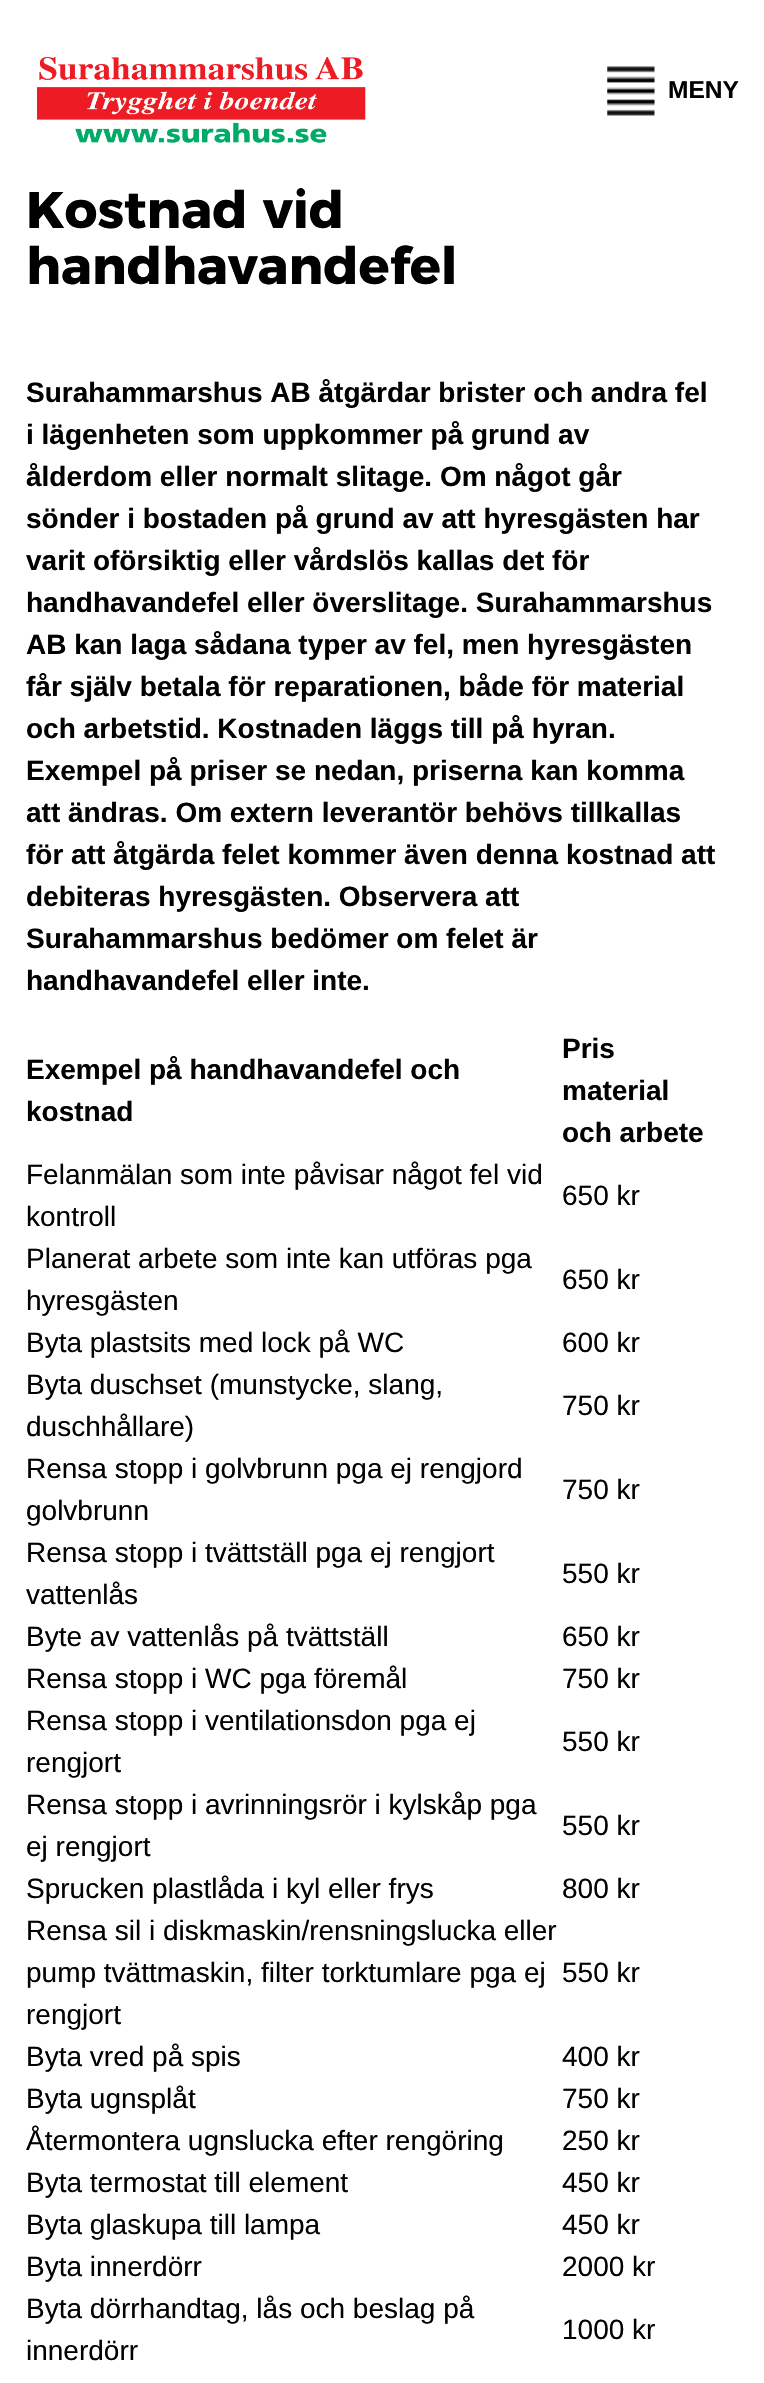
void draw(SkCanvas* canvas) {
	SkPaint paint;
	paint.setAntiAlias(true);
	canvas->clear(0xffffffff);
	canvas->drawImageRect(SkImages::DeferredFromEncodedData(SkData::MakeFromFileName("img1.png")), SkRect::MakeXYWH(37, 57, 329, 86), SkSamplingOptions());
	canvas->drawImageRect(SkImages::DeferredFromEncodedData(SkData::MakeFromFileName("img2.png")), SkRect::MakeXYWH(607, 66, 48, 50), SkSamplingOptions());
	SkFont f1(fontMgr->matchFamilyStyle("Liberation Sans", SkFontStyle::Bold()), 24.5);
	f1.setSubpixel(true);
	paint.setColor(0xff000000);
	canvas->drawString("MENY", 668, 98, f1, paint);
	SkFont f2(fontMgr->matchFamilyStyle("Montserrat", SkFontStyle::Bold()), 51.5);
	f2.setSubpixel(true);
	canvas->drawString("Kostnad vid", 26, 228, f2, paint);
	canvas->drawString("handhavandefel", 26, 284, f2, paint);
	SkFont f3(fontMgr->matchFamilyStyle("Liberation Sans", SkFontStyle::Bold()), 28);
	f3.setSubpixel(true);
	canvas->drawString("Surahammarshus AB åtgärdar brister och andra fel", 26, 402, f3, paint);
	canvas->drawString("i lägenheten som uppkommer på grund av", 26, 444, f3, paint);
	canvas->drawString("ålderdom eller normalt slitage. Om något går", 26, 486, f3, paint);
	canvas->drawString("sönder i bostaden på grund av att hyresgästen har", 26, 528, f3, paint);
	canvas->drawString("varit oförsiktig eller vårdslös kallas det för", 26, 570, f3, paint);
	canvas->drawString("handhavandefel eller överslitage. Surahammarshus", 26, 612, f3, paint);
	canvas->drawString("AB kan laga sådana typer av fel, men hyresgästen", 26, 654, f3, paint);
	canvas->drawString("får själv betala för reparationen, både för material", 26, 696, f3, paint);
	canvas->drawString("och arbetstid. Kostnaden läggs till på hyran.", 26, 738, f3, paint);
	canvas->drawString("Exempel på priser se nedan, priserna kan komma", 26, 780, f3, paint);
	canvas->drawString("att ändras. Om extern leverantör behövs tillkallas", 26, 822, f3, paint);
	canvas->drawString("för att åtgärda felet kommer även denna kostnad att", 26, 864, f3, paint);
	canvas->drawString("debiteras hyresgästen. Observera att", 26, 906, f3, paint);
	canvas->drawString("Surahammarshus bedömer om felet är", 26, 948, f3, paint);
	canvas->drawString("handhavandefel eller inte.", 26, 990, f3, paint);
	canvas->drawString("Exempel på handhavandefel och", 26, 1079, f3, paint);
	canvas->drawString("kostnad", 26, 1121, f3, paint);
	canvas->drawString("Pris", 562, 1058, f3, paint);
	canvas->drawString("material", 562, 1100, f3, paint);
	canvas->drawString("och arbete", 562, 1142, f3, paint);
	SkFont f4(fontMgr->matchFamilyStyle("Liberation Sans", SkFontStyle::Normal()), 28);
	f4.setSubpixel(true);
	canvas->drawString("Felanmälan som inte påvisar något fel vid", 26, 1184, f4, paint);
	canvas->drawString("kontroll", 26, 1226, f4, paint);
	canvas->drawString("650 kr", 562, 1205, f4, paint);
	canvas->drawString("Planerat arbete som inte kan utföras pga", 26, 1268, f4, paint);
	canvas->drawString("hyresgästen", 26, 1310, f4, paint);
	canvas->drawString("650 kr", 562, 1289, f4, paint);
	canvas->drawString("Byta plastsits med lock på WC", 26, 1352, f4, paint);
	canvas->drawString("600 kr", 562, 1352, f4, paint);
	canvas->drawString("Byta duschset (munstycke, slang,", 26, 1394, f4, paint);
	canvas->drawString("duschhållare)", 26, 1436, f4, paint);
	canvas->drawString("750 kr", 562, 1415, f4, paint);
	canvas->drawString("Rensa stopp i golvbrunn pga ej rengjord", 26, 1478, f4, paint);
	canvas->drawString("golvbrunn", 26, 1520, f4, paint);
	canvas->drawString("750 kr", 562, 1499, f4, paint);
	canvas->drawString("Rensa stopp i tvättställ pga ej rengjort", 26, 1562, f4, paint);
	canvas->drawString("vattenlås", 26, 1604, f4, paint);
	canvas->drawString("550 kr", 562, 1583, f4, paint);
	canvas->drawString("Byte av vattenlås på tvättställ", 26, 1646, f4, paint);
	canvas->drawString("650 kr", 562, 1646, f4, paint);
	canvas->drawString("Rensa stopp i WC pga föremål", 26, 1688, f4, paint);
	canvas->drawString("750 kr", 562, 1688, f4, paint);
	canvas->drawString("Rensa stopp i ventilationsdon pga ej", 26, 1730, f4, paint);
	canvas->drawString("rengjort", 26, 1772, f4, paint);
	canvas->drawString("550 kr", 562, 1751, f4, paint);
	canvas->drawString("Rensa stopp i avrinningsrör i kylskåp pga", 26, 1814, f4, paint);
	canvas->drawString("ej rengjort", 26, 1856, f4, paint);
	canvas->drawString("550 kr", 562, 1835, f4, paint);
	canvas->drawString("Sprucken plastlåda i kyl eller frys", 26, 1898, f4, paint);
	canvas->drawString("800 kr", 562, 1898, f4, paint);
	canvas->drawString("Rensa sil i diskmaskin/rensningslucka eller", 26, 1940, f4, paint);
	canvas->drawString("pump tvättmaskin, filter torktumlare pga ej", 26, 1982, f4, paint);
	canvas->drawString("rengjort", 26, 2024, f4, paint);
	canvas->drawString("550 kr", 562, 1982, f4, paint);
	canvas->drawString("Byta vred på spis", 26, 2066, f4, paint);
	canvas->drawString("400 kr", 562, 2066, f4, paint);
	canvas->drawString("Byta ugnsplåt", 26, 2108, f4, paint);
	canvas->drawString("750 kr", 562, 2108, f4, paint);
	canvas->drawString("Återmontera ugnslucka efter rengöring", 26, 2150, f4, paint);
	canvas->drawString("250 kr", 562, 2150, f4, paint);
	canvas->drawString("Byta termostat till element", 26, 2192, f4, paint);
	canvas->drawString("450 kr", 562, 2192, f4, paint);
	canvas->drawString("Byta glaskupa till lampa", 26, 2234, f4, paint);
	canvas->drawString("450 kr", 562, 2234, f4, paint);
	canvas->drawString("Byta innerdörr", 26, 2276, f4, paint);
	canvas->drawString("2000 kr", 562, 2276, f4, paint);
	canvas->drawString("Byta dörrhandtag, lås och beslag på", 26, 2318, f4, paint);
	canvas->drawString("innerdörr", 26, 2360, f4, paint);
	canvas->drawString("1000 kr", 562, 2339, f4, paint);
}
